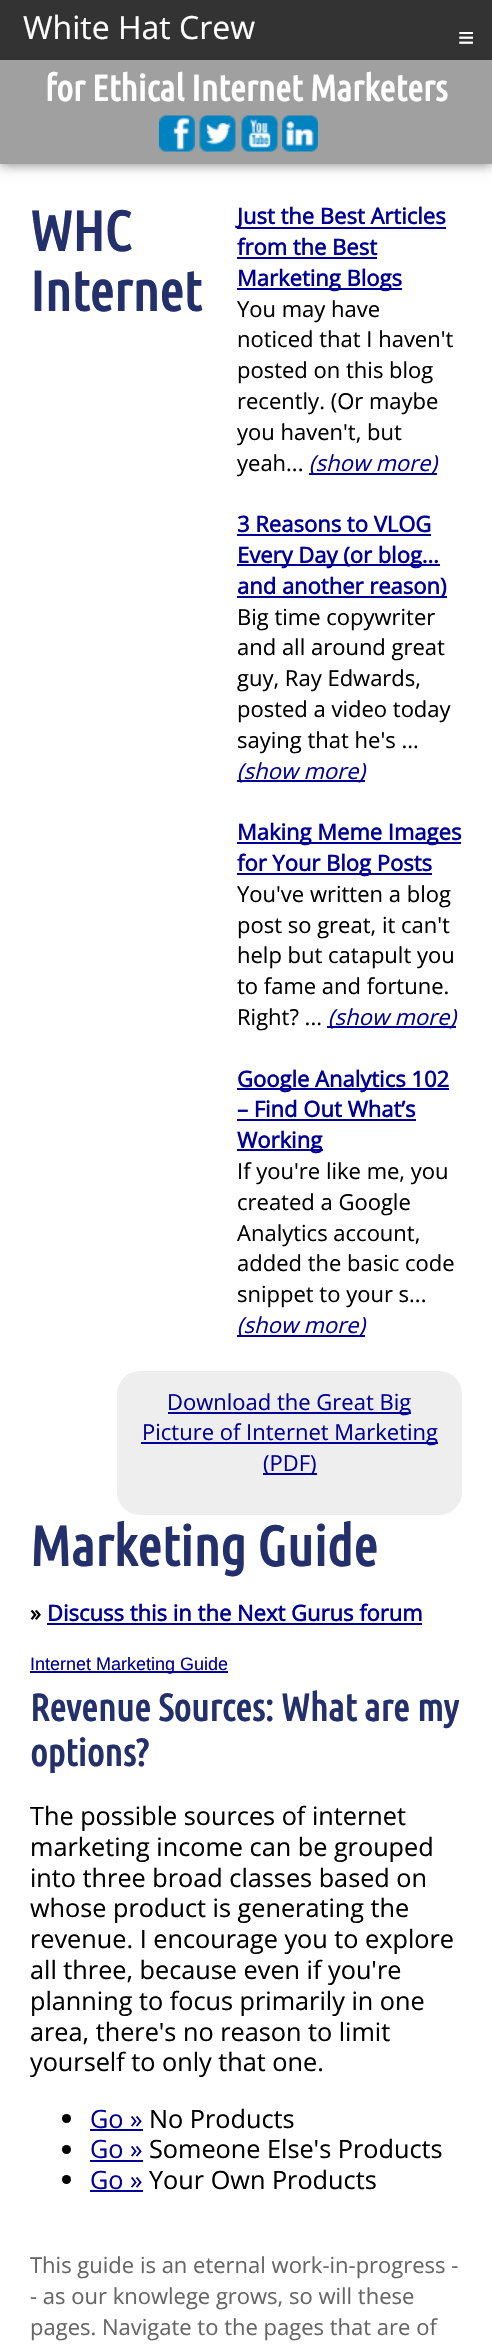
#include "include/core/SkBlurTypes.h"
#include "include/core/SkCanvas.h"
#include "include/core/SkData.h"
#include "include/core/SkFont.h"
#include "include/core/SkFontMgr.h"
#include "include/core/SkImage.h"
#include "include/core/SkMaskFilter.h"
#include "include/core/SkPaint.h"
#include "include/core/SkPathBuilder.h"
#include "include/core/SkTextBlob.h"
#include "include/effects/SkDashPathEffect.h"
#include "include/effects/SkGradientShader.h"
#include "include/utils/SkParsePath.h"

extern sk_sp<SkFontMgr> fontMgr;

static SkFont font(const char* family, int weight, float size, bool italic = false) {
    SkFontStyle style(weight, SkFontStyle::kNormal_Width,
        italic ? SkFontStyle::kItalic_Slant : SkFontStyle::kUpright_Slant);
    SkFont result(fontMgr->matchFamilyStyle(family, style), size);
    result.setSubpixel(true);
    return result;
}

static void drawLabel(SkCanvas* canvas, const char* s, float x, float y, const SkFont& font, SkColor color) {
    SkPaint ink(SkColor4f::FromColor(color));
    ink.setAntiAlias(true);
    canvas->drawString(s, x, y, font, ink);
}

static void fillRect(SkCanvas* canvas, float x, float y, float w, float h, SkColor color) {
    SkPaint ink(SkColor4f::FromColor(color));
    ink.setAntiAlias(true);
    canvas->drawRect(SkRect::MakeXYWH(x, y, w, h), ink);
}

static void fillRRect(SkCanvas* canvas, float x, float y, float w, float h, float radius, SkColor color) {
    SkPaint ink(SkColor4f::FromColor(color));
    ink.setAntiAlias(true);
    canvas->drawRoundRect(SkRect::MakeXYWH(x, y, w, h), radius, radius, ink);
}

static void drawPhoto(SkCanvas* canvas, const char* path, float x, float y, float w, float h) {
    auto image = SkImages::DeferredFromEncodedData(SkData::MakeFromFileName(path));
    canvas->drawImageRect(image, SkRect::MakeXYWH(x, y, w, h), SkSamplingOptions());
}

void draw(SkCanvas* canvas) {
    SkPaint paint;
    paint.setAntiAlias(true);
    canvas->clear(0xFFFFFFFF);
    paint.setColor(0xFF777777);
    paint.setMaskFilter(SkMaskFilter::MakeBlur(kNormal_SkBlurStyle, 6));
    canvas->drawRect(SkRect::MakeXYWH(0, 60, 492, 104), paint);
    paint.setMaskFilter(nullptr);
    fillRect(canvas, 0, 0, 492, 60, 0xFF333333);
    SkFont font1 = font("Open Sans", 400, 32);
    drawLabel(canvas, "White Hat Crew", 23, 39, font1, 0xFFFFFFFF);
    SkFont font2 = font("Liberation Sans", 400, 28);
    drawLabel(canvas, "≡", 458, 47, font2, 0xFFFFFFFF);
    fillRect(canvas, 0, 60, 492, 104, 0xFFA0A0A0);
    SkFont font3 = font("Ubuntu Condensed", 700, 36.4f);
    drawLabel(canvas, "for Ethical Internet Marketers", 45, 101, font3, 0xFFFFFFFF);
    drawPhoto(canvas, "assets/img1.png", 159, 115, 36, 37);
    drawPhoto(canvas, "assets/img2.png", 199, 115, 37, 37);
    drawPhoto(canvas, "assets/img3.png", 241, 115, 37, 37);
    drawPhoto(canvas, "assets/img4.png", 282, 115, 36, 37);
    fillRect(canvas, 237, 227, 209, 2, 0xFF000099);
    SkFont font4 = font("Open Sans", 700, 22);
    drawLabel(canvas, "Just the Best Articles", 237, 224, font4, 0xFF000099);
    drawLabel(canvas, "from the Best", 237, 255, font4, 0xFF000099);
    fillRect(canvas, 237, 257, 140, 2, 0xFF000099);
    fillRect(canvas, 237, 288, 165, 2, 0xFF000099);
    drawLabel(canvas, "Marketing Blogs", 237, 286, font4, 0xFF000099);
    SkFont font5 = font("Open Sans", 400, 22);
    drawLabel(canvas, "You may have", 237, 317, font5, 0xFF000000);
    drawLabel(canvas, "noticed that I haven't", 237, 347, font5, 0xFF000000);
    drawLabel(canvas, "posted on this blog", 237, 378, font5, 0xFF000000);
    drawLabel(canvas, "recently. (Or maybe", 237, 409, font5, 0xFF000000);
    drawLabel(canvas, "you haven't, but", 237, 440, font5, 0xFF000000);
    drawLabel(canvas, "yeah...", 237, 471, font5, 0xFF000000);
    fillRect(canvas, 309, 473, 128, 2, 0xFF000099);
    SkFont font6 = font("Open Sans", 400, 22, true);
    drawLabel(canvas, "(show more)", 309, 471, font6, 0xFF000099);
    drawLabel(canvas, "3 Reasons to VLOG", 237, 532, font4, 0xFF000099);
    fillRect(canvas, 237, 534, 194, 2, 0xFF000099);
    fillRect(canvas, 237, 564, 203, 2, 0xFF000099);
    drawLabel(canvas, "Every Day (or blog…", 237, 563, font4, 0xFF000099);
    fillRect(canvas, 237, 596, 210, 2, 0xFF000099);
    drawLabel(canvas, "and another reason)", 237, 594, font4, 0xFF000099);
    drawLabel(canvas, "Big time copywriter", 237, 625, font5, 0xFF000000);
    drawLabel(canvas, "and all around great", 237, 655, font5, 0xFF000000);
    drawLabel(canvas, "guy, Ray Edwards,", 237, 686, font5, 0xFF000000);
    drawLabel(canvas, "posted a video today", 237, 717, font5, 0xFF000000);
    drawLabel(canvas, "saying that he's ...", 237, 748, font5, 0xFF000000);
    fillRect(canvas, 237, 780, 128, 2, 0xFF000099);
    drawLabel(canvas, "(show more)", 237, 779, font6, 0xFF000099);
    fillRect(canvas, 237, 842, 224, 2, 0xFF000099);
    drawLabel(canvas, "Making Meme Images", 237, 840, font4, 0xFF000099);
    fillRect(canvas, 237, 873, 195, 2, 0xFF000099);
    drawLabel(canvas, "for Your Blog Posts", 237, 871, font4, 0xFF000099);
    drawLabel(canvas, "You've written a blog", 237, 902, font5, 0xFF000000);
    drawLabel(canvas, "post so great, it can't", 237, 933, font5, 0xFF000000);
    drawLabel(canvas, "help but catapult you", 237, 963, font5, 0xFF000000);
    drawLabel(canvas, "to fame and fortune.", 237, 994, font5, 0xFF000000);
    drawLabel(canvas, "Right? ...", 237, 1025, font5, 0xFF000000);
    fillRect(canvas, 327, 1026, 129, 2, 0xFF000099);
    drawLabel(canvas, "(show more)", 328, 1025, font6, 0xFF000099);
    fillRect(canvas, 237, 1088, 212, 2, 0xFF000099);
    drawLabel(canvas, "Google Analytics 102", 237, 1087, font4, 0xFF000099);
    drawLabel(canvas, "– Find Out What’s", 237, 1117, font4, 0xFF000099);
    fillRect(canvas, 237, 1119, 179, 2, 0xFF000099);
    fillRect(canvas, 237, 1149, 86, 2, 0xFF000099);
    drawLabel(canvas, "Working", 237, 1148, font4, 0xFF000099);
    drawLabel(canvas, "If you're like me, you", 237, 1179, font5, 0xFF000000);
    drawLabel(canvas, "created a Google", 237, 1210, font5, 0xFF000000);
    drawLabel(canvas, "Analytics account,", 237, 1241, font5, 0xFF000000);
    drawLabel(canvas, "added the basic code", 237, 1271, font5, 0xFF000000);
    drawLabel(canvas, "snippet to your s...", 237, 1302, font5, 0xFF000000);
    fillRect(canvas, 237, 1335, 128, 2, 0xFF000099);
    drawLabel(canvas, "(show more)", 237, 1333, font6, 0xFF000099);
    SkFont font7 = font("Ubuntu Condensed", 700, 56);
    drawLabel(canvas, "WHC", 30, 251, font7, 0xFF24306B);
    drawLabel(canvas, "Internet", 30, 311, font7, 0xFF24306B);
    drawLabel(canvas, "Marketing Guide", 30, 1566, font7, 0xFF24306B);
    fillRRect(canvas, 117, 1371, 345, 144, 23, 0xFFEEEEEE);
    fillRect(canvas, 168, 1412, 243, 2, 0xFF000099);
    drawLabel(canvas, "Download the Great Big", 167, 1410, font5, 0xFF000099);
    fillRect(canvas, 141, 1442, 297, 2, 0xFF000099);
    drawLabel(canvas, "Picture of Internet Marketing", 142, 1440, font5, 0xFF000099);
    fillRect(canvas, 263, 1473, 54, 2, 0xFF000099);
    drawLabel(canvas, "(PDF)", 263, 1471, font5, 0xFF000099);
    drawLabel(canvas, "»", 30, 1621, font4, 0xFF000000);
    drawLabel(canvas, "Discuss this in the Next Gurus forum", 47, 1621, font4, 0xFF000099);
    fillRect(canvas, 47, 1623, 375, 2, 0xFF000099);
    fillRect(canvas, 30, 1671, 198, 2, 0xFF000099);
    SkFont font8 = font("Liberation Sans", 400, 18);
    drawLabel(canvas, "Internet Marketing Guide", 30, 1670, font8, 0xFF000099);
    SkFont font9 = font("Ubuntu Condensed", 700, 38);
    drawLabel(canvas, "Revenue Sources: What are my", 30, 1721, font9, 0xFF24306B);
    drawLabel(canvas, "options?", 30, 1766, font9, 0xFF24306B);
    SkFont font10 = font("Open Sans", 400, 25.25f);
    drawLabel(canvas, "The possible sources of internet", 30, 1825, font10, 0xFF000000);
    drawLabel(canvas, "marketing income can be grouped", 30, 1856, font10, 0xFF000000);
    drawLabel(canvas, "into three broad classes based on", 30, 1887, font10, 0xFF000000);
    drawLabel(canvas, "whose product is generating the", 30, 1917, font10, 0xFF000000);
    drawLabel(canvas, "revenue. I encourage you to explore", 30, 1948, font10, 0xFF000000);
    drawLabel(canvas, "all three, because even if you're", 30, 1979, font10, 0xFF000000);
    drawLabel(canvas, "planning to focus primarily in one", 30, 2010, font10, 0xFF000000);
    drawLabel(canvas, "area, there's no reason to limit", 30, 2041, font10, 0xFF000000);
    drawLabel(canvas, "yourself to only that one.", 30, 2071, font10, 0xFF000000);
    paint.setColor(0xFF000000);
    canvas->drawCircle(66.5f, 2118.5f, 4.5f, paint);
    drawLabel(canvas, "Go »", 90, 2128, font10, 0xFF000099);
    fillRect(canvas, 90, 2129, 53, 2, 0xFF000099);
    drawLabel(canvas, "No Products", 149, 2128, font10, 0xFF000000);
    canvas->drawCircle(66.5f, 2149.5f, 4.5f, paint);
    drawLabel(canvas, "Go »", 90, 2158, font10, 0xFF000099);
    fillRect(canvas, 90, 2160, 53, 2, 0xFF000099);
    drawLabel(canvas, "Someone Else's Products", 149, 2158, font10, 0xFF000000);
    canvas->drawCircle(66.5f, 2179.5f, 4.5f, paint);
    drawLabel(canvas, "Go »", 90, 2189, font10, 0xFF000099);
    fillRect(canvas, 90, 2190, 53, 2, 0xFF000099);
    drawLabel(canvas, "Your Own Products", 149, 2189, font10, 0xFF000000);
    drawLabel(canvas, "This guide is an eternal work-in-progress -", 30, 2273, font5, 0xFF666666);
    drawLabel(canvas, "- as our knowlege grows, so will these", 30, 2304, font5, 0xFF666666);
    drawLabel(canvas, "pages. Navigate to the pages that are of", 30, 2335, font5, 0xFF666666);
}
